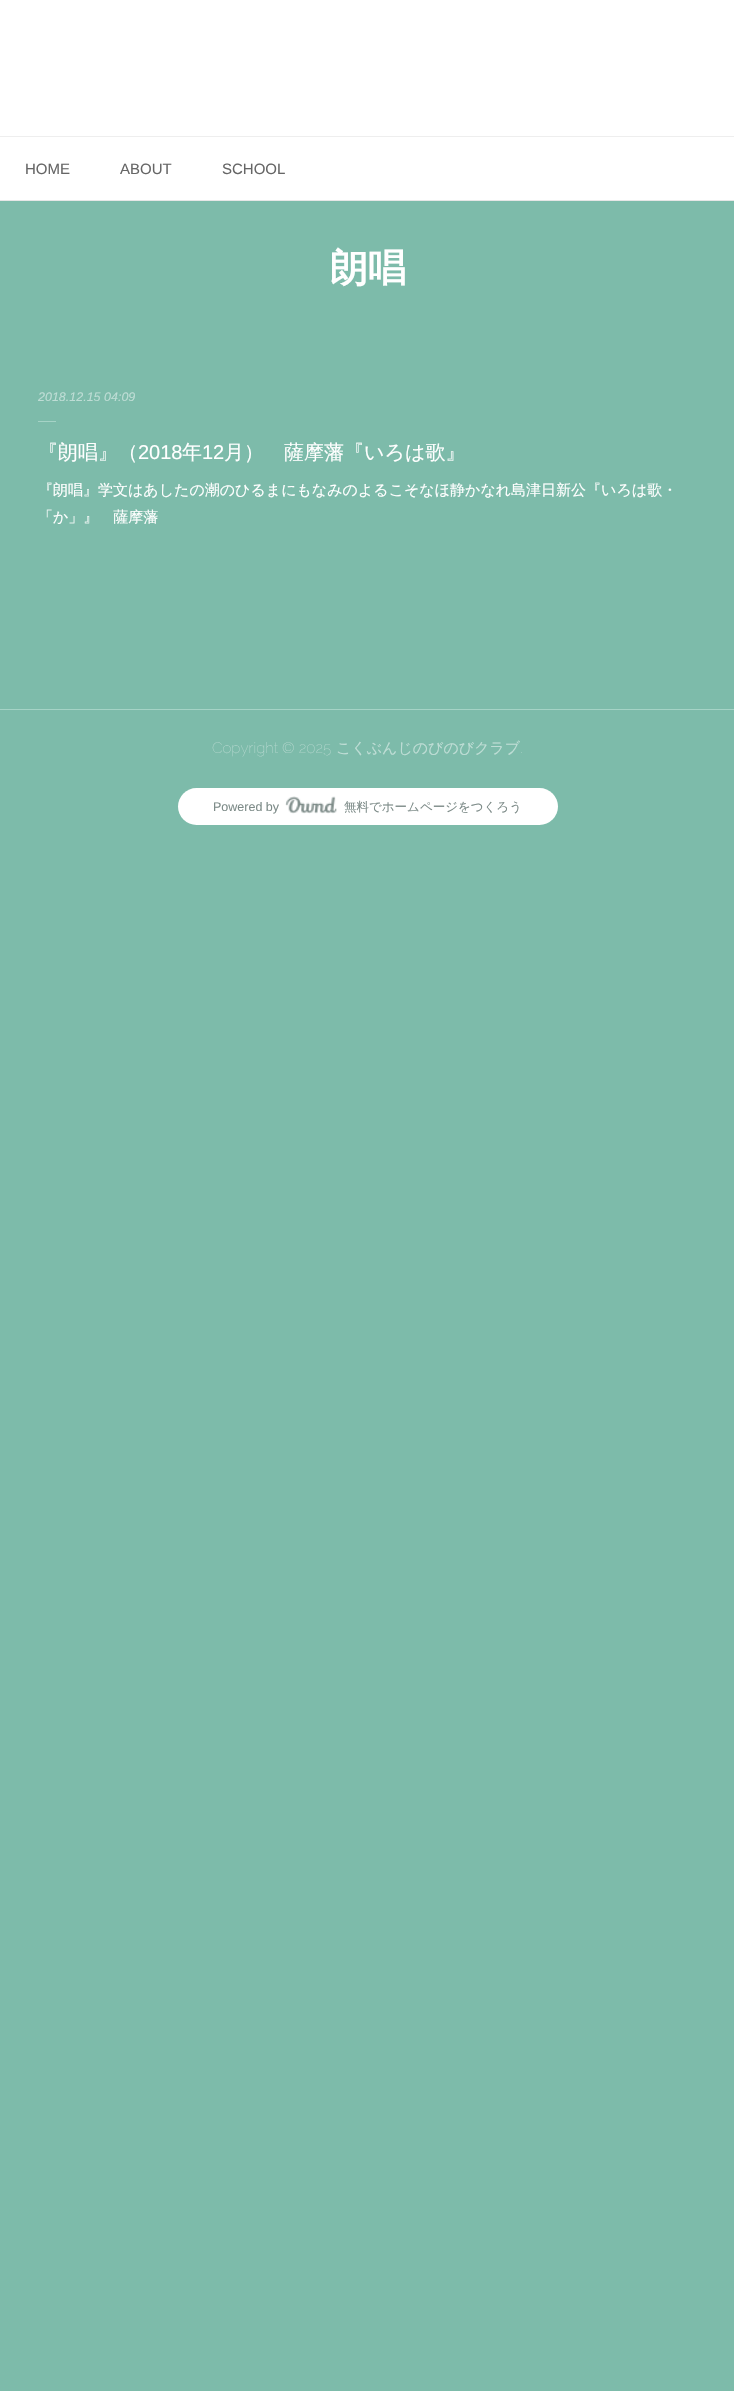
#include "include/core/SkBlurTypes.h"
#include "include/core/SkCanvas.h"
#include "include/core/SkData.h"
#include "include/core/SkFont.h"
#include "include/core/SkFontMgr.h"
#include "include/core/SkImage.h"
#include "include/core/SkMaskFilter.h"
#include "include/core/SkPaint.h"
#include "include/core/SkPathBuilder.h"
#include "include/core/SkTextBlob.h"
#include "include/effects/SkDashPathEffect.h"
#include "include/effects/SkGradientShader.h"
#include "include/utils/SkParsePath.h"

extern sk_sp<SkFontMgr> fontMgr;

static SkFont font(const char* family, int weight, float size, bool italic = false) {
    SkFontStyle style(weight, SkFontStyle::kNormal_Width,
        italic ? SkFontStyle::kItalic_Slant : SkFontStyle::kUpright_Slant);
    SkFont result(fontMgr->matchFamilyStyle(family, style), size);
    result.setSubpixel(true);
    return result;
}

static void drawLabel(SkCanvas* canvas, const char* s, float x, float y, const SkFont& font, SkColor color) {
    SkPaint ink(SkColor4f::FromColor(color));
    ink.setAntiAlias(true);
    canvas->drawString(s, x, y, font, ink);
}

static void fillRect(SkCanvas* canvas, float x, float y, float w, float h, SkColor color) {
    SkPaint ink(SkColor4f::FromColor(color));
    ink.setAntiAlias(true);
    canvas->drawRect(SkRect::MakeXYWH(x, y, w, h), ink);
}

static void fillRRect(SkCanvas* canvas, float x, float y, float w, float h, float radius, SkColor color) {
    SkPaint ink(SkColor4f::FromColor(color));
    ink.setAntiAlias(true);
    canvas->drawRoundRect(SkRect::MakeXYWH(x, y, w, h), radius, radius, ink);
}

static void drawPhoto(SkCanvas* canvas, const char* path, float x, float y, float w, float h) {
    auto image = SkImages::DeferredFromEncodedData(SkData::MakeFromFileName(path));
    canvas->drawImageRect(image, SkRect::MakeXYWH(x, y, w, h), SkSamplingOptions());
}

void draw(SkCanvas* canvas) {
    SkPaint paint;
    paint.setAntiAlias(true);
    canvas->clear(0xFF7DBBAA);
    fillRect(canvas, 0, 0, 734, 200, 0xFFFFFFFF);
    fillRect(canvas, 0, 136, 734, 1, 0xFFEEEEEE);
    fillRect(canvas, 0, 200, 734, 1, 0xFFE6E6E6);
    SkFont font1 = font("Liberation Sans", 400, 15);
    drawLabel(canvas, "HOME", 25, 174, font1, 0xFF666666);
    drawLabel(canvas, "ABOUT", 120, 174, font1, 0xFF666666);
    drawLabel(canvas, "SCHOOL", 222, 174, font1, 0xFF666666);
    SkFont font2 = font("WenQuanYi Zen Hei", 700, 38);
    drawLabel(canvas, "朗唱", 330, 281, font2, 0xFFFFFFFF);
    SkFont font3 = font("Liberation Sans", 400, 12.5f, true);
    drawLabel(canvas, "2018.12.15 04:09", 38, 401, font3, 0xFFBEDDD5);
    fillRect(canvas, 38, 421, 18, 1, 0xFFA5D3C6);
    SkFont font4 = font("WenQuanYi Zen Hei", 500, 20);
    drawLabel(canvas, "『朗唱』（", 38, 459, font4, 0xFFFFFFFF);
    SkFont font5 = font("Liberation Sans", 400, 20);
    drawLabel(canvas, "2018", 138, 459, font5, 0xFFFFFFFF);
    drawLabel(canvas, "年", 182, 459, font4, 0xFFFFFFFF);
    drawLabel(canvas, "12", 202, 459, font5, 0xFFFFFFFF);
    drawLabel(canvas, "月）　薩摩藩『いろは歌』", 224, 459, font4, 0xFFFFFFFF);
    SkFont font6 = font("WenQuanYi Zen Hei", 500, 15);
    drawLabel(canvas, "『朗唱』学文はあしたの潮のひるまにもなみのよるこそなほ静かなれ島津日新公『いろは歌・", 38, 495, font6, 0xFFFFFFFF);
    drawLabel(canvas, "「か」』　薩摩藩", 38, 522, font6, 0xFFFFFFFF);
    fillRect(canvas, 0, 709, 734, 1, 0xFFA5D3C6);
    SkFont font7 = font("Raleway", 100, 15);
    drawLabel(canvas, "Copyright © 2025", 212, 753, font7, 0xFFBEDDD5);
    drawLabel(canvas, "こくぶんじのびのびクラブ", 336, 753, font6, 0xFFBEDDD5);
    drawLabel(canvas, ".", 520, 753, font7, 0xFFBEDDD5);
    fillRRect(canvas, 178, 788, 380, 37, 18.5f, 0xFFFFFFFF);
    SkFont font8 = font("Liberation Sans", 400, 12.5f);
    drawLabel(canvas, "Powered by", 213, 811, font8, 0xFF7D8B88);
    drawPhoto(canvas, "assets/img1.png", 285, 796, 52, 18);
    SkFont font9 = font("WenQuanYi Zen Hei", 500, 12.5f);
    drawLabel(canvas, "無料でホームページをつくろう", 344, 811, font9, 0xFF7D8B88);
}
